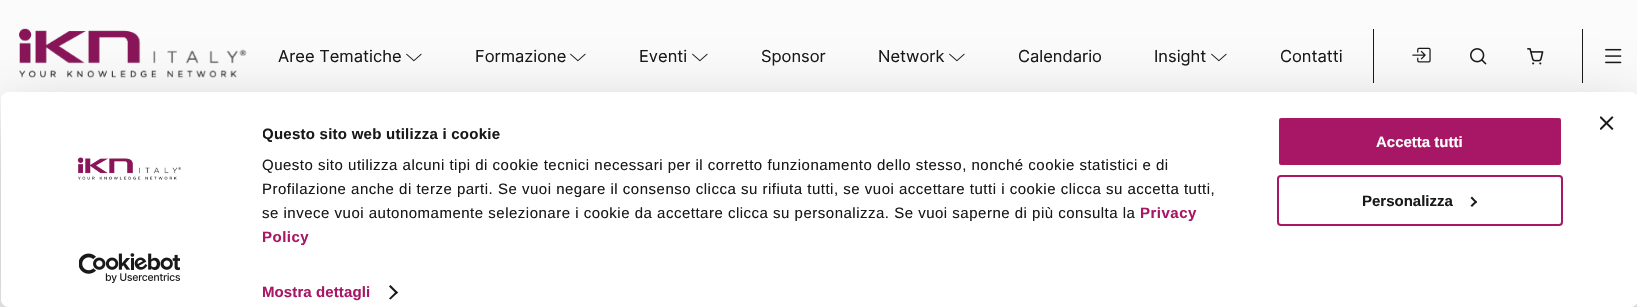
#include "include/core/SkBlurTypes.h"
#include "include/core/SkCanvas.h"
#include "include/core/SkData.h"
#include "include/core/SkFont.h"
#include "include/core/SkFontMgr.h"
#include "include/core/SkImage.h"
#include "include/core/SkMaskFilter.h"
#include "include/core/SkPaint.h"
#include "include/core/SkPathBuilder.h"
#include "include/core/SkTextBlob.h"
#include "include/effects/SkDashPathEffect.h"
#include "include/effects/SkGradientShader.h"
#include "include/utils/SkParsePath.h"

extern sk_sp<SkFontMgr> fontMgr;

static SkFont font(const char* family, int weight, float size, bool italic = false) {
    SkFontStyle style(weight, SkFontStyle::kNormal_Width,
        italic ? SkFontStyle::kItalic_Slant : SkFontStyle::kUpright_Slant);
    SkFont result(fontMgr->matchFamilyStyle(family, style), size);
    result.setSubpixel(true);
    return result;
}

static void drawLabel(SkCanvas* canvas, const char* s, float x, float y, const SkFont& font, SkColor color) {
    SkPaint ink(SkColor4f::FromColor(color));
    ink.setAntiAlias(true);
    canvas->drawString(s, x, y, font, ink);
}

static void drawTracked(SkCanvas* canvas, const char* s, float x, float y, const SkFont& font, const SkPaint& ink, float letter, float word) {
    std::vector<SkGlyphID> glyphs(font.countText(s, strlen(s), SkTextEncoding::kUTF8));
    std::vector<float> xs(glyphs.size());
    font.textToGlyphs(s, strlen(s), SkTextEncoding::kUTF8, glyphs);
    font.getXPos(glyphs, xs, x);
    float extra = 0;
    for (size_t i = 0; i < glyphs.size(); i++) {
        xs[i] += extra;
        extra += letter + word * (glyphs[i] == font.unicharToGlyph(' '));
    }
    canvas->drawTextBlob(SkTextBlob::MakeFromPosHGlyphs(glyphs, xs, y, font), 0, 0, ink);
}

static void fillRect(SkCanvas* canvas, float x, float y, float w, float h, SkColor color) {
    SkPaint ink(SkColor4f::FromColor(color));
    ink.setAntiAlias(true);
    canvas->drawRect(SkRect::MakeXYWH(x, y, w, h), ink);
}

static void fillRRect(SkCanvas* canvas, float x, float y, float w, float h, float radius, SkColor color) {
    SkPaint ink(SkColor4f::FromColor(color));
    ink.setAntiAlias(true);
    canvas->drawRoundRect(SkRect::MakeXYWH(x, y, w, h), radius, radius, ink);
}

static void drawPhoto(SkCanvas* canvas, const char* path, float x, float y, float w, float h) {
    auto image = SkImages::DeferredFromEncodedData(SkData::MakeFromFileName(path));
    canvas->drawImageRect(image, SkRect::MakeXYWH(x, y, w, h), SkSamplingOptions());
}

static SkPath parsePath(const char* data, bool evenOdd = false) {
    SkPath result = *SkParsePath::FromSVGString(data);
    if (evenOdd) result.setFillType(SkPathFillType::kEvenOdd);
    return result;
}

void draw(SkCanvas* canvas) {
    SkPaint paint;
    paint.setAntiAlias(true);
    canvas->clear(0xFFFBFBFB);
    drawPhoto(canvas, "assets/img1.png", 19, 28, 228, 50);
    SkFont font1 = font("Inter", 400, 16.5f);
    drawLabel(canvas, "Aree Tematiche", 278, 62, font1, 0xFF191919);
    drawPhoto(canvas, "assets/img2.png", 406, 53, 16, 9);
    drawLabel(canvas, "Formazione", 475, 62, font1, 0xFF191919);
    drawPhoto(canvas, "assets/img2.png", 570, 53, 16, 9);
    drawLabel(canvas, "Eventi", 639, 62, font1, 0xFF191919);
    drawPhoto(canvas, "assets/img2.png", 692, 53, 16, 9);
    drawLabel(canvas, "Sponsor", 761, 62, font1, 0xFF191919);
    drawLabel(canvas, "Network", 878, 62, font1, 0xFF191919);
    drawPhoto(canvas, "assets/img2.png", 949, 53, 16, 9);
    drawLabel(canvas, "Calendario", 1018, 62, font1, 0xFF191919);
    drawLabel(canvas, "Insight", 1154, 62, font1, 0xFF191919);
    drawPhoto(canvas, "assets/img2.png", 1211, 53, 16, 9);
    drawLabel(canvas, "Contatti", 1280, 62, font1, 0xFF191919);
    fillRect(canvas, 1582, 29, 1, 54, 0xFF191919);
    fillRect(canvas, 1373, 29, 1, 54, 0xFF191919);
    drawPhoto(canvas, "assets/img3.png", 1412, 47, 19, 16);
    drawPhoto(canvas, "assets/img4.png", 1470, 48, 17, 17);
    drawPhoto(canvas, "assets/img5.png", 1527, 48, 17, 17);
    drawPhoto(canvas, "assets/img6.png", 1605, 48, 17, 16);
    canvas->save();
    canvas->clipPath(parsePath("M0 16H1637V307H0ZM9 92H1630C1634.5 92 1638 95.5 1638 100V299C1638 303.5 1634.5 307 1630 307H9C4.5 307 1 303.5 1 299V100C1 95.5 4.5 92 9 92Z", true), true);
    paint.setColor(0x4D000000);
    paint.setMaskFilter(SkMaskFilter::MakeBlur(kNormal_SkBlurStyle, 35));
    canvas->drawRoundRect(SkRect::MakeXYWH(1, 122, 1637, 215), 8, 8, paint);
    paint.setMaskFilter(nullptr);
    canvas->restore();
    fillRRect(canvas, 1, 92, 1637, 215, 8, 0xFFFFFFFF);
    drawPhoto(canvas, "assets/img7.png", 1600, 116, 14, 14);
    drawPhoto(canvas, "assets/img8.png", 77, 157, 105, 23);
    drawPhoto(canvas, "assets/img9.png", 79, 253, 101, 30);
    canvas->save();
    canvas->clipRect(SkRect::MakeXYWH(263, 122, 985, 127));
    SkFont font2 = font("Liberation Sans", 700, 15);
    paint.setColor(0xFF191919);
    drawTracked(canvas, "Questo sito web utilizza i cookie", 262, 139, font2, paint, 0.25f, 0);
    canvas->restore();
    SkFont font3 = font("Liberation Sans", 400, 15);
    drawTracked(canvas, "Questo sito utilizza alcuni tipi di cookie tecnici necessari per il corretto funzionamento dello stesso, nonché cookie statistici e di", 262, 170, font3, paint, 0.5f, 0);
    drawTracked(canvas, "Profilazione anche di terze parti. Se vuoi negare il consenso clicca su rifiuta tutti, se vuoi accettare tutti i cookie clicca su accetta tutti,", 262, 194, font3, paint, 0.5f, 0);
    drawTracked(canvas, "se invece vuoi autonomamente selezionare i cookie da accettare clicca su personalizza. Se vuoi saperne di più consulta la", 262, 218, font3, paint, 0.5f, 0);
    paint.setColor(0xFFA81765);
    drawTracked(canvas, "Privacy", 1140, 218, font2, paint, 0.5f, 0);
    drawTracked(canvas, "Policy", 262, 242, font2, paint, 0.5f, 0);
    drawTracked(canvas, "Mostra dettagli", 262, 297, font2, paint, 0.1f, 0);
    paint.setColor(0xFF191919);
    canvas->drawPath(parsePath("M390.5 285L398 292.5L396.5 294L389 286.5Z"), paint);
    canvas->drawPath(parsePath("M396.5 291L398 292.5L390.5 299.5L389 298.5Z"), paint);
    paint.setColor(0xFFA81765);
    canvas->drawRoundRect(SkRect::MakeXYWH(1278, 117, 284, 49), 3, 3, paint);
    paint.setStroke(true);
    paint.setStrokeWidth(2);
    paint.setColor(0xFFFFFFFF);
    canvas->drawRoundRect(SkRect::MakeXYWH(1278, 117, 284, 49), 3, 3, paint);
    drawLabel(canvas, "Accetta tutti", 1376, 147, font2, 0xFFFFFFFF);
    paint.setColor(0xFFA81765);
    canvas->drawRoundRect(SkRect::MakeXYWH(1278, 176, 284, 49), 3, 3, paint);
    drawLabel(canvas, "Personalizza", 1362, 206, font2, 0xFF191919);
    paint.setStroke(false);
    paint.setColor(0xFF191919);
    canvas->drawPath(parsePath("M1472 196.5L1477 202L1476 203.5L1470.5 198Z"), paint);
    canvas->drawPath(parsePath("M1476 200.5L1477 202L1472 207L1470.5 205.5Z"), paint);
}
